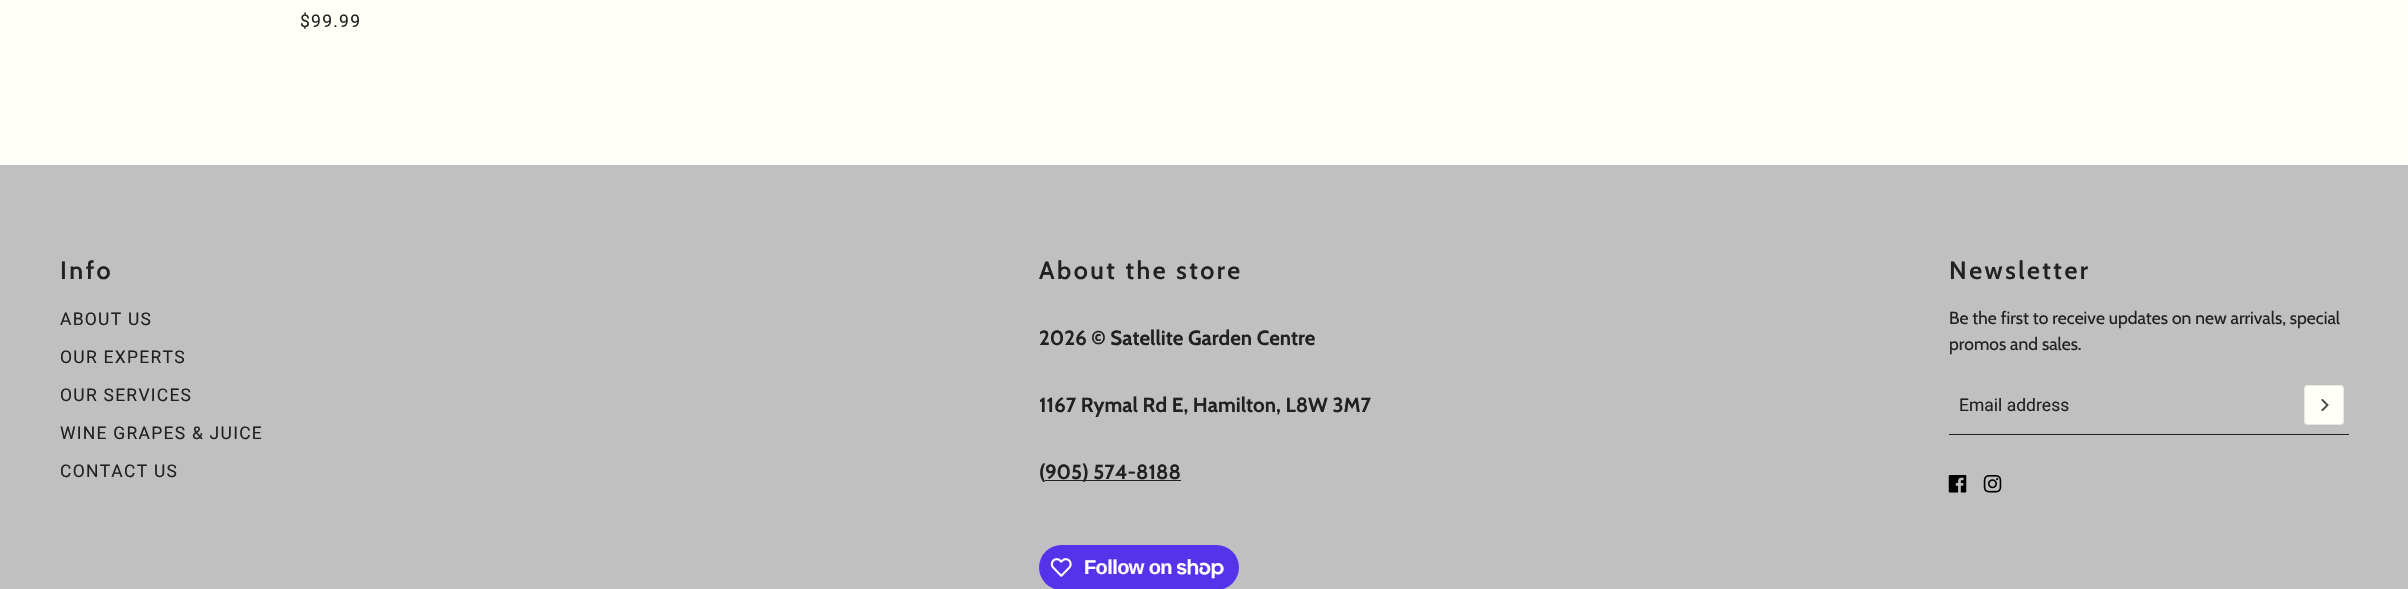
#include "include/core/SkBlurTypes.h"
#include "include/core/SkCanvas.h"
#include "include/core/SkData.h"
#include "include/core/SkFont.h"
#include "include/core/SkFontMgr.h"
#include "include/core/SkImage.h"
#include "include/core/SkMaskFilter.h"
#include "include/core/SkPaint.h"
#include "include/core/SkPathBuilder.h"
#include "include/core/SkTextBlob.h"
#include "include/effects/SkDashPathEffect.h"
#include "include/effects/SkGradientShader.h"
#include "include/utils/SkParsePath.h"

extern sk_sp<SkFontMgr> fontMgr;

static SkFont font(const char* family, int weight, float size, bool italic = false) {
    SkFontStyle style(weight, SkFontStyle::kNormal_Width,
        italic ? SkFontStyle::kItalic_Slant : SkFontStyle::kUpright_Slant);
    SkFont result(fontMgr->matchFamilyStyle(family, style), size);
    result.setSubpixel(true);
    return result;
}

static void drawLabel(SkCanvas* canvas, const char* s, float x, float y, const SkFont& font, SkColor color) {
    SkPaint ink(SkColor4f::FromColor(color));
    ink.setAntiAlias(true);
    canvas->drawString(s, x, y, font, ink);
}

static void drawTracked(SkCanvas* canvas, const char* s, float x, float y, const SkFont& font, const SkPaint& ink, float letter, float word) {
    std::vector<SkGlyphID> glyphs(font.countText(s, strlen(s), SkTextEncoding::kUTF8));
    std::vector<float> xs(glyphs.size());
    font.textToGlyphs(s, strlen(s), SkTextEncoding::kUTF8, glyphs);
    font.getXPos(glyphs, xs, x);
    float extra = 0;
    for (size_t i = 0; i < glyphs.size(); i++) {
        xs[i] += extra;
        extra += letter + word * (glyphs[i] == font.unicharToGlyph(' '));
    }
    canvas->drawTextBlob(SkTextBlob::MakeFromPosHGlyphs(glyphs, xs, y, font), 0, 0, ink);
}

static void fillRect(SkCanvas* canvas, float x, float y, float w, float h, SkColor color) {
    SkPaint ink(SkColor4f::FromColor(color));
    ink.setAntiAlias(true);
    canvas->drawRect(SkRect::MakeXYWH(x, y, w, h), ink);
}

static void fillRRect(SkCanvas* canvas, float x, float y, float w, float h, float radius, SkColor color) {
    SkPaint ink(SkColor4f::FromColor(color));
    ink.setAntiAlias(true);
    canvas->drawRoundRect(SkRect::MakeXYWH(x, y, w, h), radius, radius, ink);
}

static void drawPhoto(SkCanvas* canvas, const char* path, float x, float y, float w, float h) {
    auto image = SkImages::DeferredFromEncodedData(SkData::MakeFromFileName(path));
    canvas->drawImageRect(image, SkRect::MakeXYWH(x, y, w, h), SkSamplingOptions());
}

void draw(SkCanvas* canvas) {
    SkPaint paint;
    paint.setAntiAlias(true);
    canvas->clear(0xFFFFFFF7);
    SkFont font1 = font("Roboto", 400, 17.5f);
    paint.setColor(0xFF212121);
    drawTracked(canvas, "$99.99", 300, 27, font1, paint, 1.25f, 0);
    fillRect(canvas, 0, 165, 2408, 424, 0xFFC0C0C0);
    SkFont font2 = font("Cabin", 600, 25);
    drawTracked(canvas, "Info", 60, 279, font2, paint, 2.5f, 0);
    drawTracked(canvas, "ABOUT US", 60, 325, font1, paint, 1.25f, 0);
    drawTracked(canvas, "OUR EXPERTS", 60, 363, font1, paint, 1.25f, 0);
    drawTracked(canvas, "OUR SERVICES", 60, 401, font1, paint, 1.25f, 0);
    drawTracked(canvas, "WINE GRAPES & JUICE", 60, 439, font1, paint, 1.25f, 0);
    drawTracked(canvas, "CONTACT US", 60, 477, font1, paint, 1.25f, 0);
    drawTracked(canvas, "About the store", 1039, 279, font2, paint, 2.5f, 0);
    SkFont font3 = font("Cabin", 700, 20.5f);
    drawLabel(canvas, "2026 © Satellite Garden Centre", 1039, 345, font3, 0xFF212121);
    drawLabel(canvas, "1167 Rymal Rd E, Hamilton, L8W 3M7", 1039, 412, font3, 0xFF212121);
    drawLabel(canvas, "(", 1039, 479, font3, 0xFF212121);
    fillRect(canvas, 1045, 480, 136, 1, 0xFF212121);
    drawLabel(canvas, "905) 574-8188", 1045, 479, font3, 0xFF212121);
    fillRRect(canvas, 1039, 545, 200, 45, 22.5f, 0xFF5433EB);
    drawPhoto(canvas, "assets/img1.png", 1050, 558, 22, 19);
    SkFont font4 = font("Liberation Sans", 700, 20);
    paint.setColor(0xFFFFFFFF);
    drawTracked(canvas, "Follow on", 1084, 574, font4, paint, -0.6f, 0);
    drawPhoto(canvas, "assets/img2.png", 1176, 559, 48, 20);
    paint.setColor(0xFF212121);
    drawTracked(canvas, "Newsletter", 1949, 279, font2, paint, 2.5f, 0);
    SkFont font5 = font("Cabin", 400, 17.5f);
    drawLabel(canvas, "Be the first to receive updates on new arrivals, special", 1949, 324, font5, 0xFF212121);
    drawLabel(canvas, "promos and sales.", 1949, 350, font5, 0xFF212121);
    fillRect(canvas, 1949, 434, 400, 1, 0xFF212121);
    drawLabel(canvas, "Email address", 1959, 411, font1, 0xFF212121);
    fillRRect(canvas, 2304, 385, 40, 40, 4, 0xFFFFFFF7);
    paint.setStroke(true);
    paint.setStrokeWidth(1);
    paint.setColor(0x1A212121);
    canvas->drawRoundRect(SkRect::MakeXYWH(2304.5f, 385.5f, 39, 39), 3.5f, 3.5f, paint);
    drawPhoto(canvas, "assets/img3.png", 2321, 399, 8, 12);
    drawPhoto(canvas, "assets/img4.png", 1948, 475, 19, 18);
    drawPhoto(canvas, "assets/img5.png", 1983, 475, 19, 18);
}
